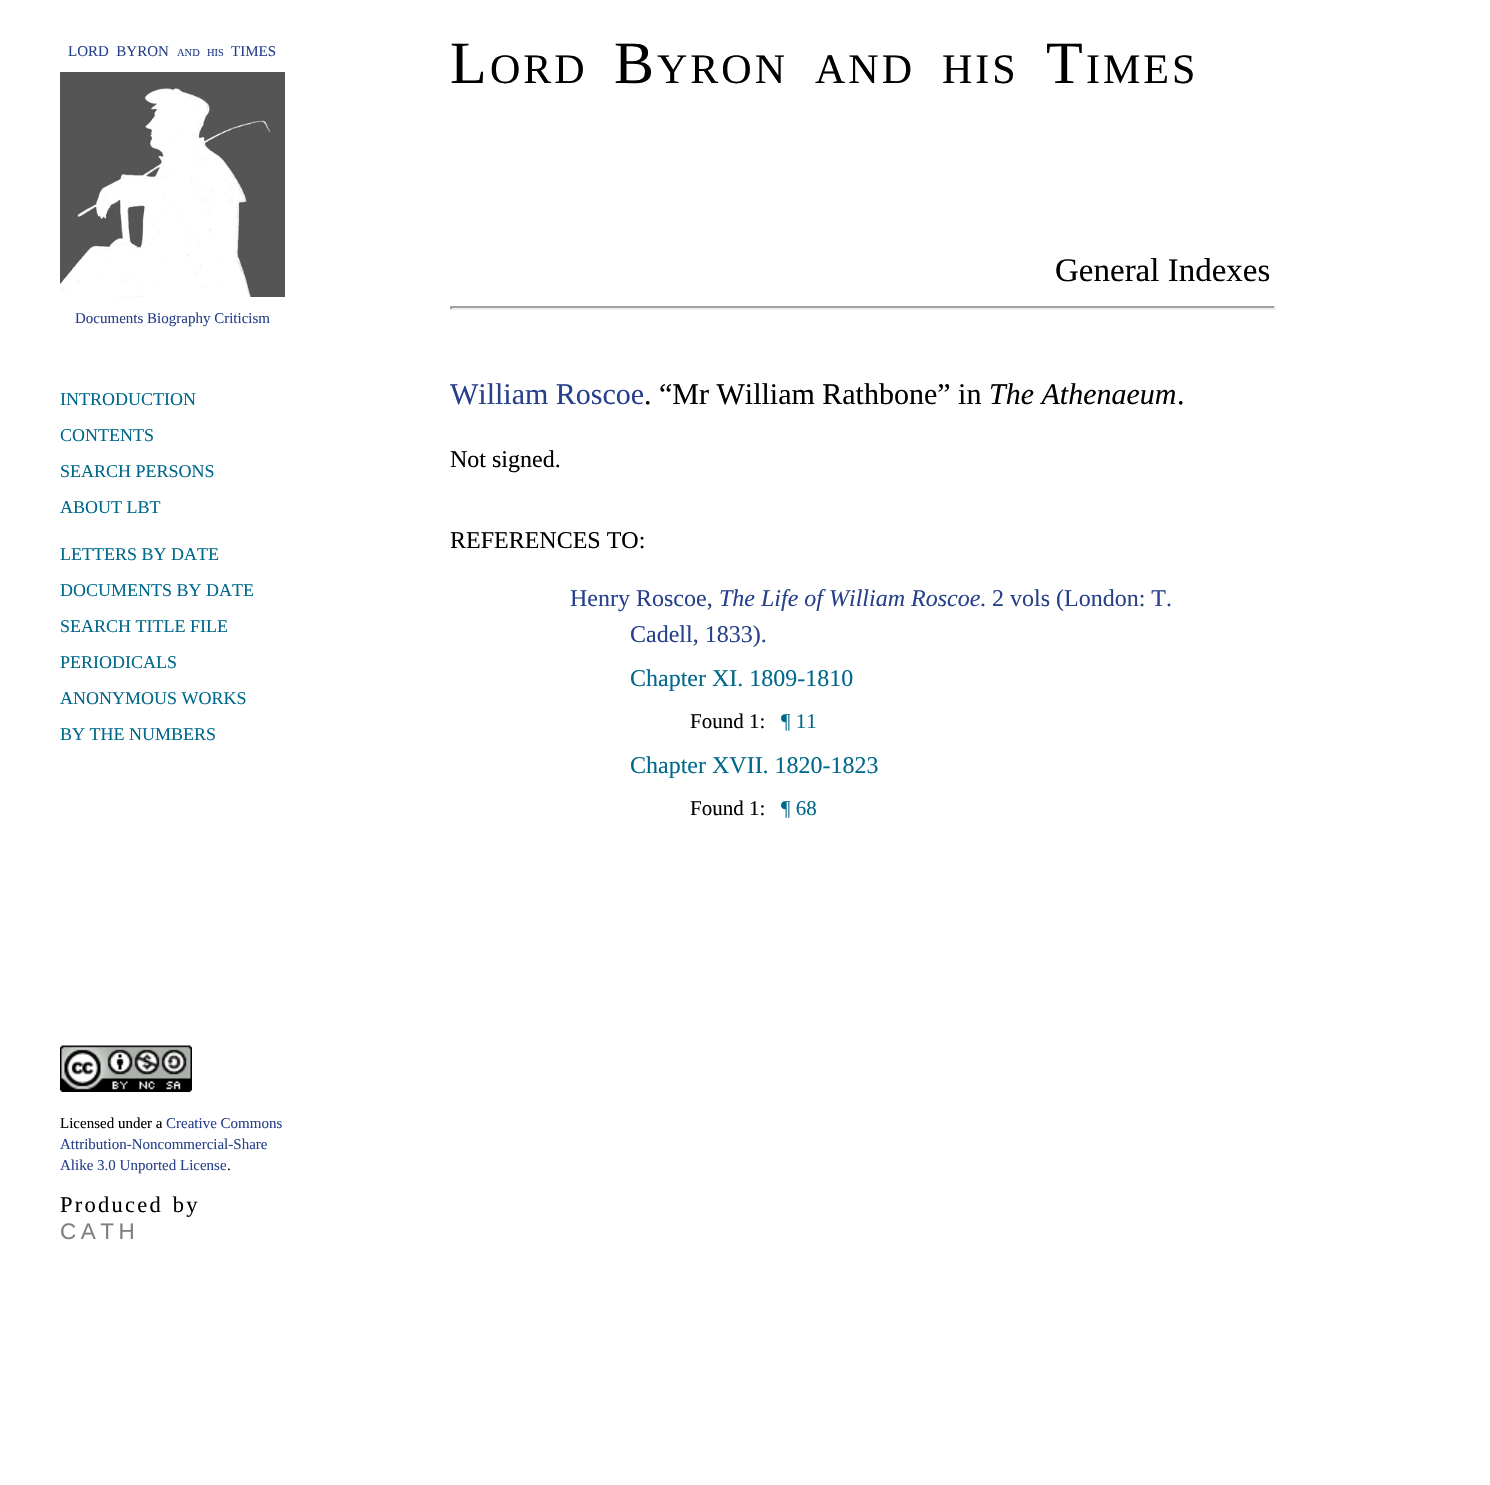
#include "include/core/SkBlurTypes.h"
#include "include/core/SkCanvas.h"
#include "include/core/SkData.h"
#include "include/core/SkFont.h"
#include "include/core/SkFontMgr.h"
#include "include/core/SkImage.h"
#include "include/core/SkMaskFilter.h"
#include "include/core/SkPaint.h"
#include "include/core/SkPathBuilder.h"
#include "include/core/SkTextBlob.h"
#include "include/effects/SkDashPathEffect.h"
#include "include/effects/SkGradientShader.h"
#include "include/utils/SkParsePath.h"

extern sk_sp<SkFontMgr> fontMgr;

static SkFont font(const char* family, int weight, float size, bool italic = false) {
    SkFontStyle style(weight, SkFontStyle::kNormal_Width,
        italic ? SkFontStyle::kItalic_Slant : SkFontStyle::kUpright_Slant);
    SkFont result(fontMgr->matchFamilyStyle(family, style), size);
    result.setSubpixel(true);
    return result;
}

static void drawLabel(SkCanvas* canvas, const char* s, float x, float y, const SkFont& font, SkColor color) {
    SkPaint ink(SkColor4f::FromColor(color));
    ink.setAntiAlias(true);
    canvas->drawString(s, x, y, font, ink);
}

static void drawTracked(SkCanvas* canvas, const char* s, float x, float y, const SkFont& font, const SkPaint& ink, float letter, float word) {
    std::vector<SkGlyphID> glyphs(font.countText(s, strlen(s), SkTextEncoding::kUTF8));
    std::vector<float> xs(glyphs.size());
    font.textToGlyphs(s, strlen(s), SkTextEncoding::kUTF8, glyphs);
    font.getXPos(glyphs, xs, x);
    float extra = 0;
    for (size_t i = 0; i < glyphs.size(); i++) {
        xs[i] += extra;
        extra += letter + word * (glyphs[i] == font.unicharToGlyph(' '));
    }
    canvas->drawTextBlob(SkTextBlob::MakeFromPosHGlyphs(glyphs, xs, y, font), 0, 0, ink);
}

static void fillRect(SkCanvas* canvas, float x, float y, float w, float h, SkColor color) {
    SkPaint ink(SkColor4f::FromColor(color));
    ink.setAntiAlias(true);
    canvas->drawRect(SkRect::MakeXYWH(x, y, w, h), ink);
}

static void drawPhoto(SkCanvas* canvas, const char* path, float x, float y, float w, float h) {
    auto image = SkImages::DeferredFromEncodedData(SkData::MakeFromFileName(path));
    canvas->drawImageRect(image, SkRect::MakeXYWH(x, y, w, h), SkSamplingOptions());
}

void draw(SkCanvas* canvas) {
    SkPaint paint;
    paint.setAntiAlias(true);
    canvas->clear(0xFFFFFFFF);
    SkFont font1 = font("Liberation Serif", 400, 15);
    drawLabel(canvas, "LORD  BYRON", 68, 56, font1, 0xFF27408B);
    SkFont font2 = font("Liberation Serif", 400, 10.5f);
    drawLabel(canvas, "AND", 177, 56, font2, 0xFF27408B);
    drawLabel(canvas, "HIS", 207, 56, font2, 0xFF27408B);
    drawLabel(canvas, "TIMES", 231, 56, font1, 0xFF27408B);
    drawPhoto(canvas, "assets/img1.png", 60, 72, 225, 225);
    drawLabel(canvas, "Documents Biography Criticism", 75, 323, font1, 0xFF27408B);
    SkFont font3 = font("Liberation Serif", 400, 60);
    paint.setColor(0xFF000000);
    drawTracked(canvas, "L", 450, 83, font3, paint, 3, 0);
    SkFont font4 = font("Liberation Serif", 400, 42);
    drawTracked(canvas, "ORD", 490, 83, font4, paint, 3, 0);
    drawTracked(canvas, "B", 614, 83, font3, paint, 3, 0);
    drawTracked(canvas, "YRON", 657, 83, font4, paint, 3, 0);
    drawTracked(canvas, "AND", 815, 83, font4, paint, 3, 0);
    drawTracked(canvas, "HIS", 942, 83, font4, paint, 3, 0);
    drawTracked(canvas, "T", 1046, 83, font3, paint, 3, 0);
    drawTracked(canvas, "IMES", 1086, 83, font4, paint, 3, 0);
    SkFont font5 = font("Liberation Serif", 400, 33);
    drawLabel(canvas, "General Indexes", 1055, 281, font5, 0xFF000000);
    fillRect(canvas, 450, 306, 825, 2, 0xFF9F9F9F);
    fillRect(canvas, 1274, 306, 2, 3, 0xFFEEEEEE);
    fillRect(canvas, 450, 308, 825, 2, 0xFFEEEEEE);
    fillRect(canvas, 450, 306, 2, 3, 0xFF9F9F9F);
    SkFont font6 = font("Liberation Serif", 400, 18);
    drawLabel(canvas, "INTRODUCTION", 60, 405, font6, 0xFF00688B);
    drawLabel(canvas, "CONTENTS", 60, 441, font6, 0xFF00688B);
    drawLabel(canvas, "SEARCH PERSONS", 60, 477, font6, 0xFF00688B);
    drawLabel(canvas, "ABOUT LBT", 60, 513, font6, 0xFF00688B);
    drawLabel(canvas, "LETTERS BY DATE", 60, 560, font6, 0xFF00688B);
    drawLabel(canvas, "DOCUMENTS BY DATE", 60, 596, font6, 0xFF00688B);
    drawLabel(canvas, "SEARCH TITLE FILE", 60, 632, font6, 0xFF00688B);
    drawLabel(canvas, "PERIODICALS", 60, 668, font6, 0xFF00688B);
    drawLabel(canvas, "ANONYMOUS WORKS", 60, 704, font6, 0xFF00688B);
    drawLabel(canvas, "BY THE NUMBERS", 60, 740, font6, 0xFF00688B);
    drawPhoto(canvas, "assets/img2.png", 60, 1045, 132, 47);
    drawLabel(canvas, "Licensed under a", 60, 1128, font1, 0xFF000000);
    drawLabel(canvas, "Creative Commons", 166, 1128, font1, 0xFF27408B);
    drawLabel(canvas, "Attribution-Noncommercial-Share", 60, 1149, font1, 0xFF27408B);
    drawLabel(canvas, "Alike 3.0 Unported License", 60, 1170, font1, 0xFF27408B);
    drawLabel(canvas, ".", 227, 1170, font1, 0xFF000000);
    SkFont font7 = font("Liberation Serif", 400, 22.5f);
    drawTracked(canvas, "Produced by", 60, 1212, font7, paint, 2.25f, 2);
    SkFont font8 = font("Liberation Sans", 400, 22.5f);
    paint.setColor(0xFF808080);
    drawTracked(canvas, "CATH", 60, 1239, font8, paint, 4.5f, 0);
    SkFont font9 = font("Liberation Serif", 400, 30);
    drawLabel(canvas, "William Roscoe", 450, 404, font9, 0xFF27408B);
    drawLabel(canvas, ". “Mr William Rathbone” in", 644, 404, font9, 0xFF000000);
    SkFont font10 = font("Liberation Serif", 400, 30, true);
    drawLabel(canvas, "The Athenaeum", 989, 404, font10, 0xFF000000);
    drawLabel(canvas, ".", 1177, 404, font9, 0xFF000000);
    SkFont font11 = font("Liberation Serif", 400, 24);
    drawLabel(canvas, "Not signed.", 450, 467, font11, 0xFF000000);
    drawLabel(canvas, "REFERENCES TO:", 450, 548, font11, 0xFF000000);
    drawLabel(canvas, "Henry Roscoe,", 570, 606, font11, 0xFF27408B);
    SkFont font12 = font("Liberation Serif", 400, 24, true);
    drawLabel(canvas, "The Life of William Roscoe", 719, 606, font12, 0xFF27408B);
    drawLabel(canvas, ". 2 vols (London: T.", 980, 606, font11, 0xFF27408B);
    drawLabel(canvas, "Cadell, 1833).", 630, 642, font11, 0xFF27408B);
    drawLabel(canvas, "Chapter XI. 1809-1810", 630, 686, font11, 0xFF00688B);
    SkFont font13 = font("Liberation Serif", 400, 21);
    drawLabel(canvas, "Found 1:", 690, 728, font13, 0xFF000000);
    drawLabel(canvas, "¶ 11", 781, 728, font13, 0xFF00688B);
    drawLabel(canvas, "Chapter XVII. 1820-1823", 630, 773, font11, 0xFF00688B);
    drawLabel(canvas, "Found 1:", 690, 815, font13, 0xFF000000);
    drawLabel(canvas, "¶ 68", 781, 815, font13, 0xFF00688B);
}
